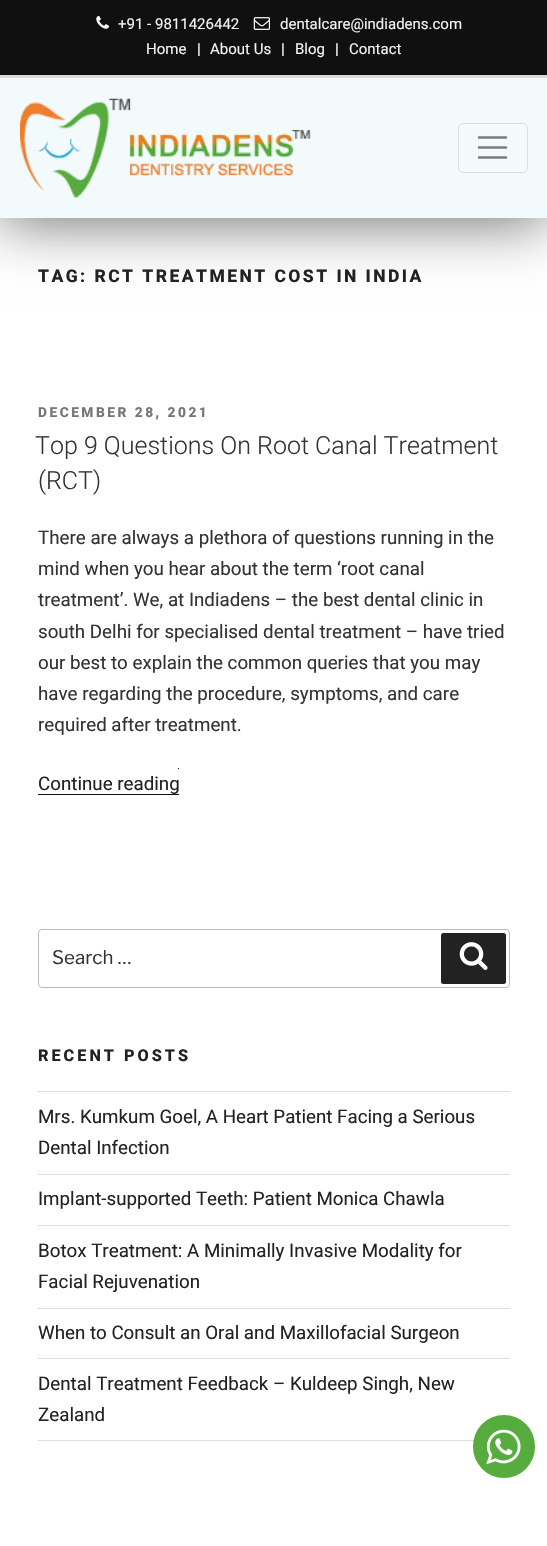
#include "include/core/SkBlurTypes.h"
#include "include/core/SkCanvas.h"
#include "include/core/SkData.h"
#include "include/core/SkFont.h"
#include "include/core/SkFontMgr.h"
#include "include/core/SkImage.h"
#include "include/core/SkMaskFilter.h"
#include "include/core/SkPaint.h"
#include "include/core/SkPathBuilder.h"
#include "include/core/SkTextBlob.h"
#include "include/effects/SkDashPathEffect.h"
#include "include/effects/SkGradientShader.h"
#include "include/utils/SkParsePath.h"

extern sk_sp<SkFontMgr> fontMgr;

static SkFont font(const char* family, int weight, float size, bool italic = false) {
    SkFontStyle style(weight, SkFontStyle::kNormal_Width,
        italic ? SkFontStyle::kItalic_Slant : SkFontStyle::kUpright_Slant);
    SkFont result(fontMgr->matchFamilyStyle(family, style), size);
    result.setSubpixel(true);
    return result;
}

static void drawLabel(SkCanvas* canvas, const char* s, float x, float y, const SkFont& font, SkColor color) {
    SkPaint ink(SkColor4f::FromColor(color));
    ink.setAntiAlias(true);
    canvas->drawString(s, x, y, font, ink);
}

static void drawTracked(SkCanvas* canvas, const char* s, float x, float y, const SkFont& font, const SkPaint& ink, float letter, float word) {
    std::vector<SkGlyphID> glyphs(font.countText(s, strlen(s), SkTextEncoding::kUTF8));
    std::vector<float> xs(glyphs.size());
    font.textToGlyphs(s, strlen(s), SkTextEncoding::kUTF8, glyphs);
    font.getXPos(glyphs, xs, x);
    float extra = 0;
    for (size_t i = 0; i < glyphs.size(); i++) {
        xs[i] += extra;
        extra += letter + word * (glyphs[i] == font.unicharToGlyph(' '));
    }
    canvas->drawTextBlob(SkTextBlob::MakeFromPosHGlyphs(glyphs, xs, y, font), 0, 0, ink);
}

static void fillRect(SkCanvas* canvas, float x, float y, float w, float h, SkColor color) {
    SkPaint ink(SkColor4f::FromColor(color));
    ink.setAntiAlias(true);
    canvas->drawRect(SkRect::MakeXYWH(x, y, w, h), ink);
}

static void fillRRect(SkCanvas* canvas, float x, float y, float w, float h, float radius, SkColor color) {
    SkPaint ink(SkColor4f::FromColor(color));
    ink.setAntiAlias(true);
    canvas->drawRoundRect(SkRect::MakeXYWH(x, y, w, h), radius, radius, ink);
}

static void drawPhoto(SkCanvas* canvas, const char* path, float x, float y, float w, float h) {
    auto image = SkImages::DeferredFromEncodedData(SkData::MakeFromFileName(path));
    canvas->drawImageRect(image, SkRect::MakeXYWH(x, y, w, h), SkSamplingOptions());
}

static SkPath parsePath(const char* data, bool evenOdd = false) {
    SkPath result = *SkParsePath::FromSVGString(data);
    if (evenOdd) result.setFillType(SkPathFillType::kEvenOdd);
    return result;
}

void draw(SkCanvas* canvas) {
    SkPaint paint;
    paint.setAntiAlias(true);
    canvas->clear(0xFFFFFFFF);
    paint.setColor(0x99000000);
    paint.setMaskFilter(SkMaskFilter::MakeBlur(kNormal_SkBlurStyle, 29));
    canvas->drawRect(SkRect::MakeXYWH(0, 3, 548, 217), paint);
    paint.setMaskFilter(nullptr);
    fillRect(canvas, 0, 78, 547, 140, 0xFFF3FAFB);
    fillRect(canvas, 0, 0, 547, 75, 0xFF101010);
    fillRect(canvas, 0, 75, 547, 3, 0xFFDAD9D9);
    drawPhoto(canvas, "assets/img1.png", 96, 16, 13, 13);
    SkFont font1 = font("Roboto", 400, 15);
    drawLabel(canvas, "+91 - 9811426442", 118, 29, font1, 0xFFF3F3F3);
    drawPhoto(canvas, "assets/img2.png", 253, 17, 17, 13);
    drawLabel(canvas, "dentalcare@indiadens.com", 280, 29, font1, 0xFFF3F3F3);
    drawLabel(canvas, "Home", 146, 54, font1, 0xFFF3F3F3);
    SkFont font2 = font("Roboto", 700, 15);
    drawLabel(canvas, "|", 197, 54, font2, 0xFFF3F3F3);
    drawLabel(canvas, "About Us", 210, 54, font1, 0xFFF3F3F3);
    drawLabel(canvas, "|", 281, 54, font2, 0xFFF3F3F3);
    drawLabel(canvas, "Blog", 295, 54, font1, 0xFFF3F3F3);
    drawLabel(canvas, "|", 335, 54, font2, 0xFFF3F3F3);
    drawLabel(canvas, "Contact", 349, 54, font1, 0xFFF3F3F3);
    drawPhoto(canvas, "assets/img3.png", 20, 98, 291, 100);
    paint.setStroke(true);
    paint.setStrokeWidth(1);
    paint.setColor(0xFFDBE1E2);
    canvas->drawRoundRect(SkRect::MakeXYWH(458.5f, 123.5f, 69, 49), 4.5f, 4.5f, paint);
    paint.setStrokeWidth(2.5f);
    paint.setStrokeCap(SkPaint::kRound_Cap);
    paint.setColor(0xFF7A7D7E);
    canvas->drawPath(parsePath("M479 137.5H506M479 147.5H506M479 157.5H506"), paint);
    SkFont font3 = font("Roboto", 800, 17.5f);
    paint.setStroke(false);
    paint.setColor(0xFF222222);
    drawTracked(canvas, "TAG: RCT TREATMENT COST IN INDIA", 38, 282, font3, paint, 2.45f, 0);
    SkFont font4 = font("Roboto", 800, 13.75f);
    paint.setColor(0xFF767676);
    drawTracked(canvas, "DECEMBER 28, 2021", 38, 417, font4, paint, 2.5f, 0);
    SkFont font5 = font("Roboto", 300, 25);
    drawLabel(canvas, "Top 9 Questions On Root Canal Treatment", 35, 454, font5, 0xFF333333);
    drawLabel(canvas, "(RCT)", 38, 489, font5, 0xFF333333);
    SkFont font6 = font("Roboto", 400, 18.75f);
    drawLabel(canvas, "There are always a plethora of questions running in the", 38, 544, font6, 0xFF333333);
    drawLabel(canvas, "mind when you hear about the term ‘root canal", 38, 575, font6, 0xFF333333);
    drawLabel(canvas, "treatment’. We, at Indiadens – the best dental clinic in", 38, 606, font6, 0xFF333333);
    drawLabel(canvas, "south Delhi for specialised dental treatment – have tried", 38, 638, font6, 0xFF333333);
    drawLabel(canvas, "our best to explain the common queries that you may", 38, 669, font6, 0xFF333333);
    drawLabel(canvas, "have regarding the procedure, symptoms, and care", 38, 700, font6, 0xFF333333);
    drawLabel(canvas, "required after treatment.", 38, 731, font6, 0xFF333333);
    drawLabel(canvas, "Continue reading", 38, 790, font6, 0xFF222222);
    fillRect(canvas, 38, 794, 141, 1, 0xFF0F0F0F);
    fillRect(canvas, 178, 768, 1, 1, 0xFF0F0F0F);
    paint.setStroke(true);
    paint.setStrokeWidth(1);
    paint.setStrokeCap(SkPaint::kButt_Cap);
    paint.setColor(0xFFBBBBBB);
    canvas->drawRoundRect(SkRect::MakeXYWH(38.5f, 929.5f, 471, 58), 3.5f, 3.5f, paint);
    SkFont font7 = font("Libre Franklin", 100, 18.75f);
    drawLabel(canvas, "Search …", 52, 964, font7, 0xFF333333);
    fillRRect(canvas, 441, 933, 65, 51, 2.5f, 0xFF222222);
    drawPhoto(canvas, "assets/img4.png", 459, 942, 29, 28);
    SkFont font8 = font("Roboto", 800, 16.25f);
    paint.setStroke(false);
    paint.setColor(0xFF222222);
    drawTracked(canvas, "RECENT POSTS", 38, 1061, font8, paint, 3, 0);
    fillRect(canvas, 38, 1091, 472, 1, 0xFFDDDDDD);
    fillRect(canvas, 38, 1174, 472, 1, 0xFFDDDDDD);
    drawLabel(canvas, "Mrs. Kumkum Goel, A Heart Patient Facing a Serious", 38, 1123, font6, 0xFF222222);
    drawLabel(canvas, "Dental Infection", 38, 1154, font6, 0xFF222222);
    fillRect(canvas, 38, 1225, 472, 1, 0xFFDDDDDD);
    drawLabel(canvas, "Implant-supported Teeth: Patient Monica Chawla", 38, 1205, font6, 0xFF222222);
    fillRect(canvas, 38, 1308, 472, 1, 0xFFDDDDDD);
    drawLabel(canvas, "Botox Treatment: A Minimally Invasive Modality for", 38, 1257, font6, 0xFF222222);
    drawLabel(canvas, "Facial Rejuvenation", 38, 1288, font6, 0xFF222222);
    fillRect(canvas, 38, 1358, 472, 1, 0xFFDDDDDD);
    drawLabel(canvas, "When to Consult an Oral and Maxillofacial Surgeon", 38, 1339, font6, 0xFF222222);
    fillRect(canvas, 38, 1440, 436, 1, 0xFFDDDDDD);
    drawLabel(canvas, "Dental Treatment Feedback – Kuldeep Singh, New", 38, 1390, font6, 0xFF222222);
    drawLabel(canvas, "Zealand", 38, 1421, font6, 0xFF222222);
    fillRRect(canvas, 473, 1415, 62, 63, 31, 0xFF57AC3E);
    drawPhoto(canvas, "assets/img5.png", 486, 1429, 35, 36);
}
